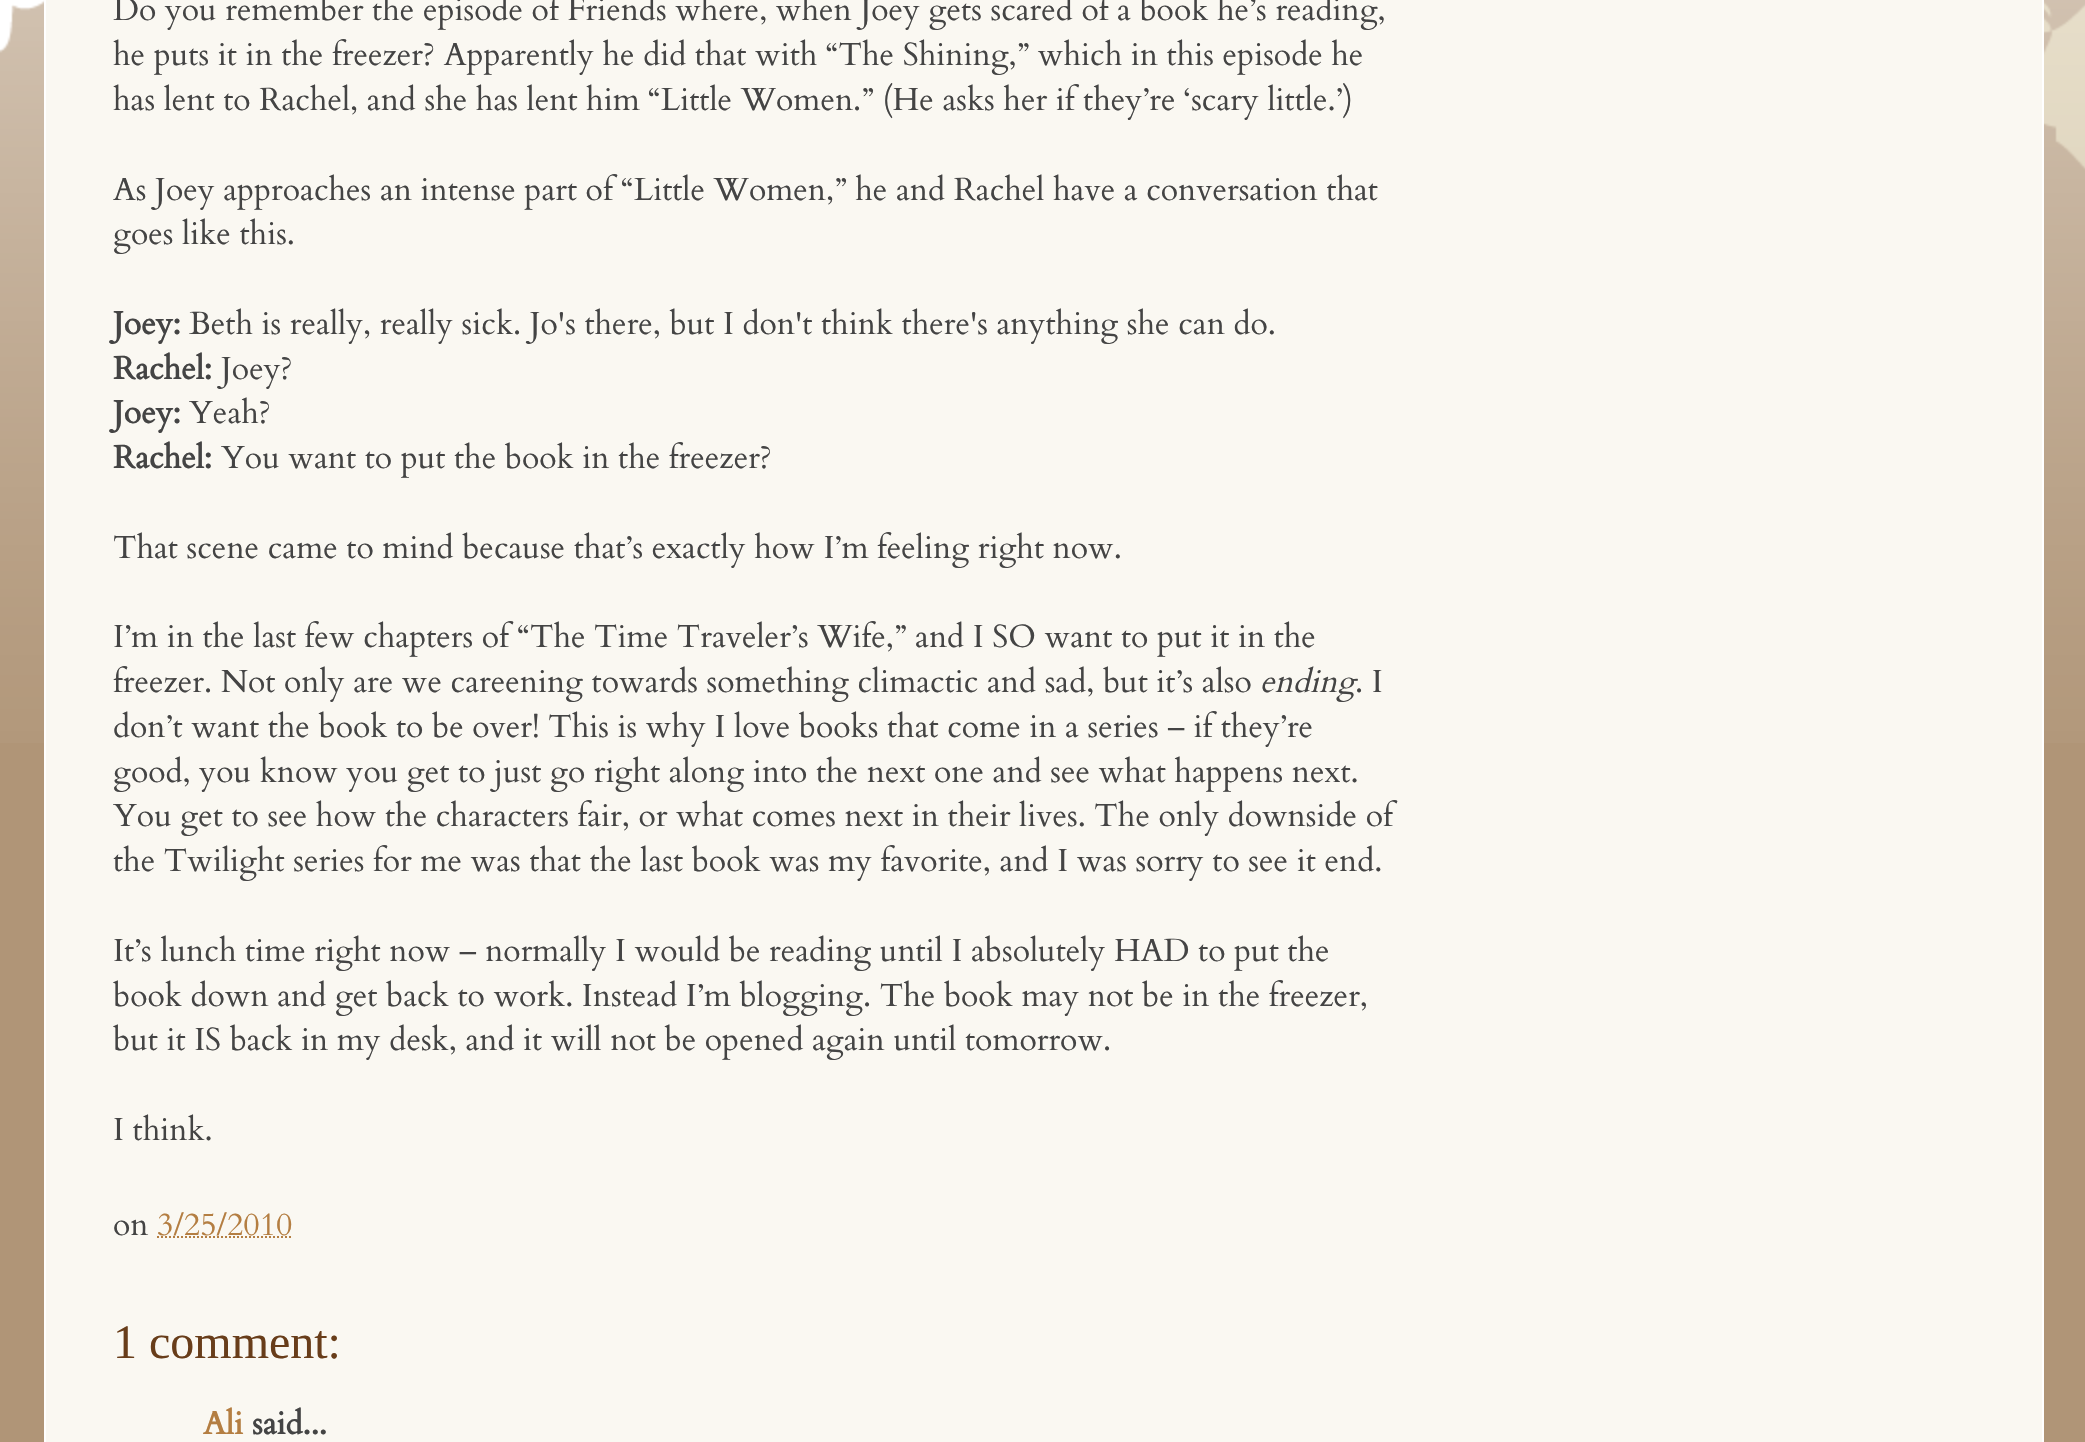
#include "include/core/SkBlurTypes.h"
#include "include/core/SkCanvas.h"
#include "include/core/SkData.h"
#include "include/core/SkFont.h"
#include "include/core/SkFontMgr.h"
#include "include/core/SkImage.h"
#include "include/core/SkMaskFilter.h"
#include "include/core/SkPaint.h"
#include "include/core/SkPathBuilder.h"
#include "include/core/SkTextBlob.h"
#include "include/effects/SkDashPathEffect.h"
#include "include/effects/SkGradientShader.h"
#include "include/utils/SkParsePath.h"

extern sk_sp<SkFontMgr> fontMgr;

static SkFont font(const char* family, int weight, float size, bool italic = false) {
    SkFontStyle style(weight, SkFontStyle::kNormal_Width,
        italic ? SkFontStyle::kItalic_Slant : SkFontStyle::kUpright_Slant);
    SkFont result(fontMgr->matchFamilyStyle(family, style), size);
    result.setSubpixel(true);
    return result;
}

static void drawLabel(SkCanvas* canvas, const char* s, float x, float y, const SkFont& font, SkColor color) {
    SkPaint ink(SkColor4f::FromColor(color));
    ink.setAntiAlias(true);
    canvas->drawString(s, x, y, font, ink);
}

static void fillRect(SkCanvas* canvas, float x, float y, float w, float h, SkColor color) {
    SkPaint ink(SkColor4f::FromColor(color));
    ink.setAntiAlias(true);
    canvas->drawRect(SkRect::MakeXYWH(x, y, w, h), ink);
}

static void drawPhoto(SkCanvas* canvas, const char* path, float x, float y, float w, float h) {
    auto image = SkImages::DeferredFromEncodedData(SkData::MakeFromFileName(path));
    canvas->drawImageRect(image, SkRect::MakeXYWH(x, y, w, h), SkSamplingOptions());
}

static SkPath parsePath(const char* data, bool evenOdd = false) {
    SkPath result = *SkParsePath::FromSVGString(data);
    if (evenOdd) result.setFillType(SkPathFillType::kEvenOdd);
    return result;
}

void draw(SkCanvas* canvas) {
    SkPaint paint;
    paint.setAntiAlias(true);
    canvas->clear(0xFFB09577);
    drawPhoto(canvas, "assets/img1.png", 0, 0, 2085, 743);
    fillRect(canvas, 46, 0, 1996, 1442, 0xFFFAF8F2);
    fillRect(canvas, 2042, 0, 2, 1442, 0xFFFFFFFF);
    fillRect(canvas, 44, 0, 2, 1442, 0xFFFFFFFF);
    SkFont font1 = font("Cardo", 400, 32);
    drawLabel(canvas, "Do you remember the episode of Friends where, when Joey gets scared of a book he’s reading,", 113, 20, font1, 0xFF444444);
    drawLabel(canvas, "he puts it in the freezer? Apparently he did that with “The Shining,” which in this episode he", 113, 65, font1, 0xFF444444);
    drawLabel(canvas, "has lent to Rachel, and she has lent him “Little Women.” (He asks her if they’re ‘scary little.’)", 113, 110, font1, 0xFF444444);
    drawLabel(canvas, "As Joey approaches an intense part of “Little Women,” he and Rachel have a conversation that", 113, 200, font1, 0xFF444444);
    drawLabel(canvas, "goes like this.", 113, 244, font1, 0xFF444444);
    SkFont font2 = font("Cardo", 700, 32);
    drawLabel(canvas, "Joey:", 113, 334, font2, 0xFF444444);
    drawLabel(canvas, "Beth is really, really sick. Jo's there, but I don't think there's anything she can do.", 189, 334, font1, 0xFF444444);
    drawLabel(canvas, "Rachel:", 113, 379, font2, 0xFF444444);
    drawLabel(canvas, "Joey?", 221, 379, font1, 0xFF444444);
    drawLabel(canvas, "Joey:", 113, 423, font2, 0xFF444444);
    drawLabel(canvas, "Yeah?", 189, 423, font1, 0xFF444444);
    drawLabel(canvas, "Rachel:", 113, 468, font2, 0xFF444444);
    drawLabel(canvas, "You want to put the book in the freezer?", 221, 468, font1, 0xFF444444);
    drawLabel(canvas, "That scene came to mind because that’s exactly how I’m feeling right now.", 113, 558, font1, 0xFF444444);
    drawLabel(canvas, "I’m in the last few chapters of “The Time Traveler’s Wife,” and I SO want to put it in the", 113, 647, font1, 0xFF444444);
    drawLabel(canvas, "freezer. Not only are we careening towards something climactic and sad, but it’s also", 113, 692, font1, 0xFF444444);
    SkFont font3 = font("Cardo", 400, 32, true);
    drawLabel(canvas, "ending", 1260, 692, font3, 0xFF444444);
    drawLabel(canvas, ". I", 1355, 692, font1, 0xFF444444);
    drawLabel(canvas, "don’t want the book to be over! This is why I love books that come in a series – if they’re", 113, 737, font1, 0xFF444444);
    drawLabel(canvas, "good, you know you get to just go right along into the next one and see what happens next.", 113, 782, font1, 0xFF444444);
    drawLabel(canvas, "You get to see how the characters fair, or what comes next in their lives. The only downside of", 113, 826, font1, 0xFF444444);
    drawLabel(canvas, "the Twilight series for me was that the last book was my favorite, and I was sorry to see it end.", 113, 871, font1, 0xFF444444);
    drawLabel(canvas, "It’s lunch time right now – normally I would be reading until I absolutely HAD to put the", 113, 961, font1, 0xFF444444);
    drawLabel(canvas, "book down and get back to work. Instead I’m blogging. The book may not be in the freezer,", 113, 1006, font1, 0xFF444444);
    drawLabel(canvas, "but it IS back in my desk, and it will not be opened again until tomorrow.", 113, 1050, font1, 0xFF444444);
    drawLabel(canvas, "I think.", 113, 1140, font1, 0xFF444444);
    drawLabel(canvas, "on", 113, 1235, font1, 0xFF444444);
    drawLabel(canvas, "3/25/2010", 157, 1235, font1, 0xFFB47E42);
    paint.setStroke(true);
    paint.setStrokeWidth(2);
    paint.setColor(0xFFB47E42);
    paint.setPathEffect(SkDashPathEffect::Make({{2, 2}}, 0));
    canvas->drawPath(parsePath("M157 1237H292.5"), paint);
    paint.setPathEffect(nullptr);
    SkFont font4 = font("Liberation Serif", 400, 48);
    drawLabel(canvas, "1 comment:", 113, 1358, font4, 0xFF683D1A);
    drawLabel(canvas, "Ali", 203, 1434, font2, 0xFFB47E42);
    drawLabel(canvas, "said...", 252, 1434, font2, 0xFF444444);
}
